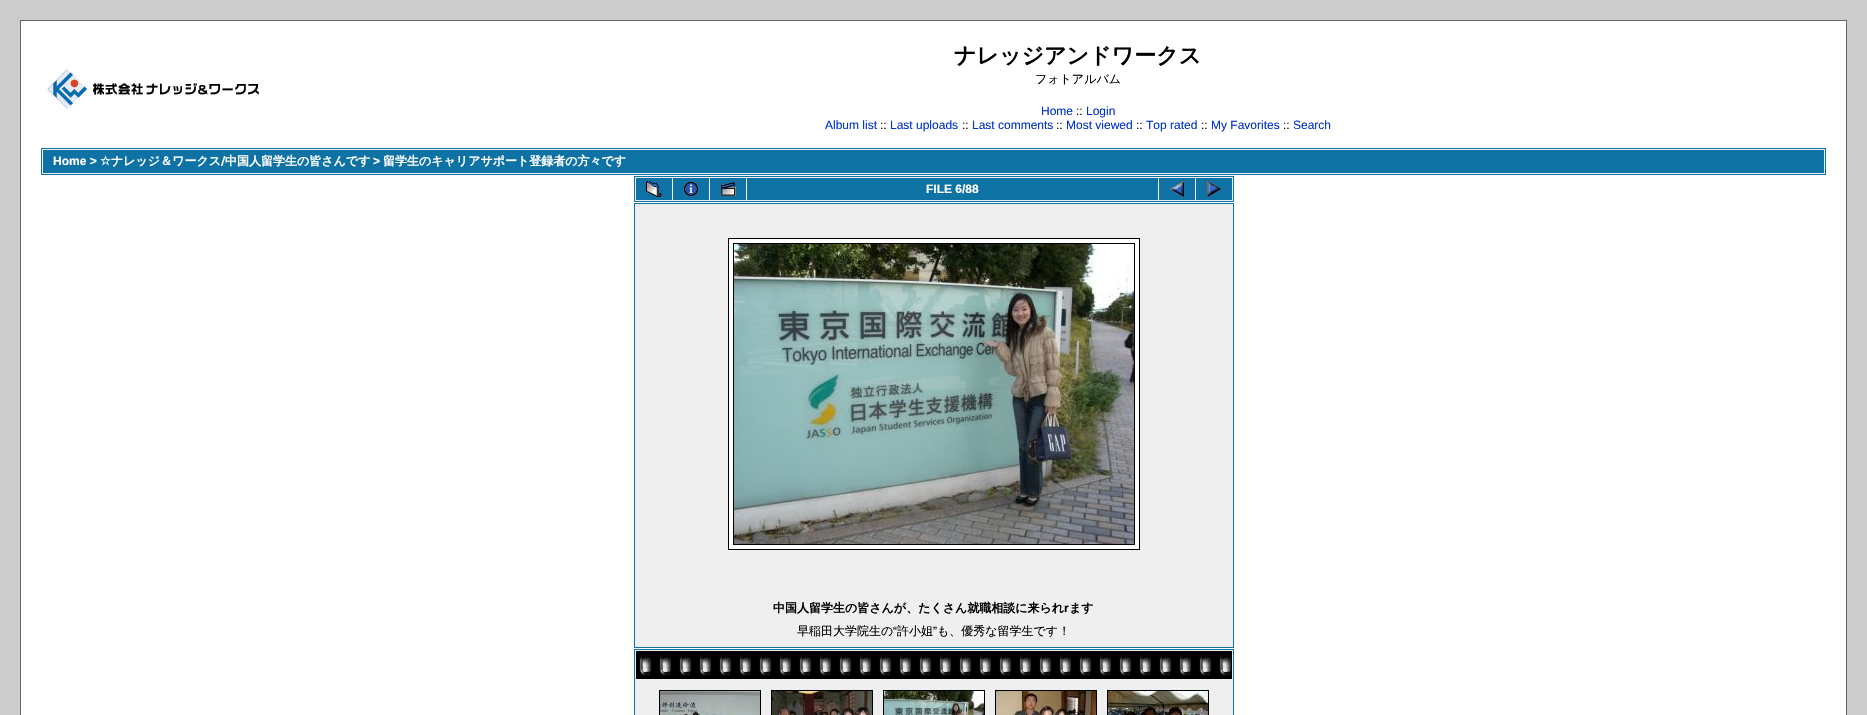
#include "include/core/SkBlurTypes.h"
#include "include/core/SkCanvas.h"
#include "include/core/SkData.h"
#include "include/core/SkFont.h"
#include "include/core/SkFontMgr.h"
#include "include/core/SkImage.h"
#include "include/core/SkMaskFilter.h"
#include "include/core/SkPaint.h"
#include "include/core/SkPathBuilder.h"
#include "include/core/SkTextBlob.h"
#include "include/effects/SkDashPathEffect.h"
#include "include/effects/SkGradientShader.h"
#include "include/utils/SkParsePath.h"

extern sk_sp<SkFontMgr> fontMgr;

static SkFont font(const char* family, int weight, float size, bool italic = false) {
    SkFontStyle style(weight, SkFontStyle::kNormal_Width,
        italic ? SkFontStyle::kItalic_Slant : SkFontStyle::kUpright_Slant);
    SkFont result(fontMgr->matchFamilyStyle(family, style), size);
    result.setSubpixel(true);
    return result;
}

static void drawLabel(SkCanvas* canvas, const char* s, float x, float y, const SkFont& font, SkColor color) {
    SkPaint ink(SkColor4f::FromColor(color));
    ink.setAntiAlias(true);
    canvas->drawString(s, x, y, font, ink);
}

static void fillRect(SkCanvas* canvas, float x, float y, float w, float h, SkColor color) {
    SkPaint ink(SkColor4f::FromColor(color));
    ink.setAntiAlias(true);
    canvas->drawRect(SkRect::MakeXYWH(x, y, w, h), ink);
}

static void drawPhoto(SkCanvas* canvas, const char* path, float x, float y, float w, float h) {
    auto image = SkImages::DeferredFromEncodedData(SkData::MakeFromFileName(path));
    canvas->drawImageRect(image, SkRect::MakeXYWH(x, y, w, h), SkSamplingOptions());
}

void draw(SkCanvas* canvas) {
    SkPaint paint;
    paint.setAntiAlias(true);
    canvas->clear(0xFFCCCCCC);
    paint.setColor(0xFFFFFFFF);
    canvas->drawRect(SkRect::MakeXYWH(20.5f, 20.5f, 1826, 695), paint);
    paint.setStroke(true);
    paint.setStrokeWidth(1);
    paint.setColor(0xFF666666);
    canvas->drawRect(SkRect::MakeXYWH(20.5f, 20.5f, 1826, 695), paint);
    drawPhoto(canvas, "assets/img1.png", 47, 69, 212, 40);
    SkFont font1 = font("WenQuanYi Zen Hei", 700, 22);
    drawLabel(canvas, "ナレッジアンドワークス", 954, 63, font1, 0xFF000000);
    SkFont font2 = font("WenQuanYi Zen Hei", 500, 12);
    drawLabel(canvas, "フォトアルバム", 1035, 83, font2, 0xFF000000);
    SkFont font3 = font("Liberation Sans", 400, 12);
    drawLabel(canvas, "Home", 1041, 115, font3, 0xFF0033CC);
    drawLabel(canvas, "::", 1076, 115, font3, 0xFF000000);
    drawLabel(canvas, "Login", 1086, 115, font3, 0xFF0033CC);
    drawLabel(canvas, "Album list", 825, 129, font3, 0xFF0033CC);
    drawLabel(canvas, "::", 880, 129, font3, 0xFF000000);
    drawLabel(canvas, "Last uploads", 890, 129, font3, 0xFF0033CC);
    drawLabel(canvas, "::", 962, 129, font3, 0xFF000000);
    drawLabel(canvas, "Last comments", 972, 129, font3, 0xFF0033CC);
    drawLabel(canvas, "::", 1056, 129, font3, 0xFF000000);
    drawLabel(canvas, "Most viewed", 1066, 129, font3, 0xFF0033CC);
    drawLabel(canvas, "::", 1136, 129, font3, 0xFF000000);
    drawLabel(canvas, "Top rated", 1146, 129, font3, 0xFF0033CC);
    drawLabel(canvas, "::", 1201, 129, font3, 0xFF000000);
    drawLabel(canvas, "My Favorites", 1211, 129, font3, 0xFF0033CC);
    drawLabel(canvas, "::", 1283, 129, font3, 0xFF000000);
    drawLabel(canvas, "Search", 1293, 129, font3, 0xFF0033CC);
    paint.setStroke(false);
    paint.setColor(0xFFEFEFEF);
    canvas->drawRect(SkRect::MakeXYWH(41.5f, 148.5f, 1784, 26), paint);
    paint.setStroke(true);
    paint.setColor(0xFF0E72A4);
    canvas->drawRect(SkRect::MakeXYWH(41.5f, 148.5f, 1784, 26), paint);
    fillRect(canvas, 43, 150, 1781, 23, 0xFF0E72A4);
    SkFont font4 = font("Liberation Sans", 700, 12);
    drawLabel(canvas, "Home >", 53, 165, font4, 0xFFFFFFFF);
    SkFont font5 = font("DejaVu Sans", 700, 12);
    drawLabel(canvas, "☆", 100, 165, font5, 0xFFFFFFFF);
    SkFont font6 = font("WenQuanYi Zen Hei", 700, 12);
    drawLabel(canvas, "ナレッジ＆ワークス", 111, 165, font6, 0xFFFFFFFF);
    drawLabel(canvas, "/", 221, 165, font5, 0xFFFFFFFF);
    drawLabel(canvas, "中国人留学生の皆さんです", 225, 165, font6, 0xFFFFFFFF);
    drawLabel(canvas, ">", 373, 165, font4, 0xFFFFFFFF);
    drawLabel(canvas, "留学生のキャリアサポート登録者の方々です", 383, 165, font6, 0xFFFFFFFF);
    paint.setStroke(false);
    paint.setColor(0xFFEFEFEF);
    canvas->drawRect(SkRect::MakeXYWH(634.5f, 176.5f, 599, 25), paint);
    paint.setStroke(true);
    paint.setColor(0xFF0E72A4);
    canvas->drawRect(SkRect::MakeXYWH(634.5f, 176.5f, 599, 25), paint);
    fillRect(canvas, 636, 178, 36, 22, 0xFF0E72A4);
    drawPhoto(canvas, "assets/img2.png", 646, 181, 16, 16);
    fillRect(canvas, 673, 178, 36, 22, 0xFF0E72A4);
    drawPhoto(canvas, "assets/img3.png", 684, 182, 14, 14);
    fillRect(canvas, 710, 178, 36, 22, 0xFF0E72A4);
    drawPhoto(canvas, "assets/img4.png", 721, 182, 15, 14);
    fillRect(canvas, 747, 178, 411, 22, 0xFF0E72A4);
    drawLabel(canvas, "FILE 6/88", 926, 193, font4, 0xFFFFFFFF);
    fillRect(canvas, 1159, 178, 36, 22, 0xFF0E72A4);
    drawPhoto(canvas, "assets/img5.png", 1170, 181, 14, 16);
    fillRect(canvas, 1196, 178, 36, 22, 0xFF0E72A4);
    drawPhoto(canvas, "assets/img6.png", 1207, 181, 14, 16);
    paint.setStroke(false);
    paint.setColor(0xFFEFEFEF);
    canvas->drawRect(SkRect::MakeXYWH(634.5f, 203.5f, 599, 444), paint);
    paint.setStroke(true);
    paint.setColor(0xFF0E72A4);
    canvas->drawRect(SkRect::MakeXYWH(634.5f, 203.5f, 599, 444), paint);
    paint.setStroke(false);
    paint.setColor(0xFFFFFFFF);
    canvas->drawRect(SkRect::MakeXYWH(728.5f, 238.5f, 411, 311), paint);
    paint.setStroke(true);
    paint.setColor(0xFF000000);
    canvas->drawRect(SkRect::MakeXYWH(728.5f, 238.5f, 411, 311), paint);
    canvas->drawRect(SkRect::MakeXYWH(733.5f, 243.5f, 401, 301), paint);
    drawPhoto(canvas, "assets/img7.png", 734, 244, 400, 300);
    drawLabel(canvas, "中国人留学生の皆さんが、たくさん就職相談に来られ", 773, 612, font6, 0xFF000000);
    drawLabel(canvas, "r", 1064, 612, font4, 0xFF000000);
    drawLabel(canvas, "ます", 1069, 612, font6, 0xFF000000);
    drawLabel(canvas, "早稲田大学院生の", 797, 635, font2, 0xFF000000);
    drawLabel(canvas, "“", 893, 635, font3, 0xFF000000);
    drawLabel(canvas, "許小姐", 897, 635, font2, 0xFF000000);
    drawLabel(canvas, "”", 933, 635, font3, 0xFF000000);
    drawLabel(canvas, "も、優秀な留学生です！", 937, 635, font2, 0xFF000000);
    paint.setStroke(false);
    paint.setColor(0xFFEFEFEF);
    canvas->drawRect(SkRect::MakeXYWH(634.5f, 649.5f, 599, 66), paint);
    paint.setStroke(true);
    paint.setColor(0xFF0E72A4);
    canvas->drawRect(SkRect::MakeXYWH(634.5f, 649.5f, 599, 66), paint);
    drawPhoto(canvas, "assets/img8.png", 636, 651, 596, 28);
    paint.setColor(0xFF000000);
    canvas->drawRect(SkRect::MakeXYWH(659.5f, 690.5f, 101, 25), paint);
    drawPhoto(canvas, "assets/img9.png", 660, 691, 100, 24);
    canvas->drawRect(SkRect::MakeXYWH(771.5f, 690.5f, 101, 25), paint);
    drawPhoto(canvas, "assets/img10.png", 772, 691, 100, 24);
    canvas->drawRect(SkRect::MakeXYWH(883.5f, 690.5f, 101, 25), paint);
    drawPhoto(canvas, "assets/img11.png", 884, 691, 100, 24);
    canvas->drawRect(SkRect::MakeXYWH(995.5f, 690.5f, 101, 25), paint);
    drawPhoto(canvas, "assets/img12.png", 996, 691, 100, 24);
    canvas->drawRect(SkRect::MakeXYWH(1107.5f, 690.5f, 101, 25), paint);
    drawPhoto(canvas, "assets/img13.png", 1108, 691, 100, 24);
}
